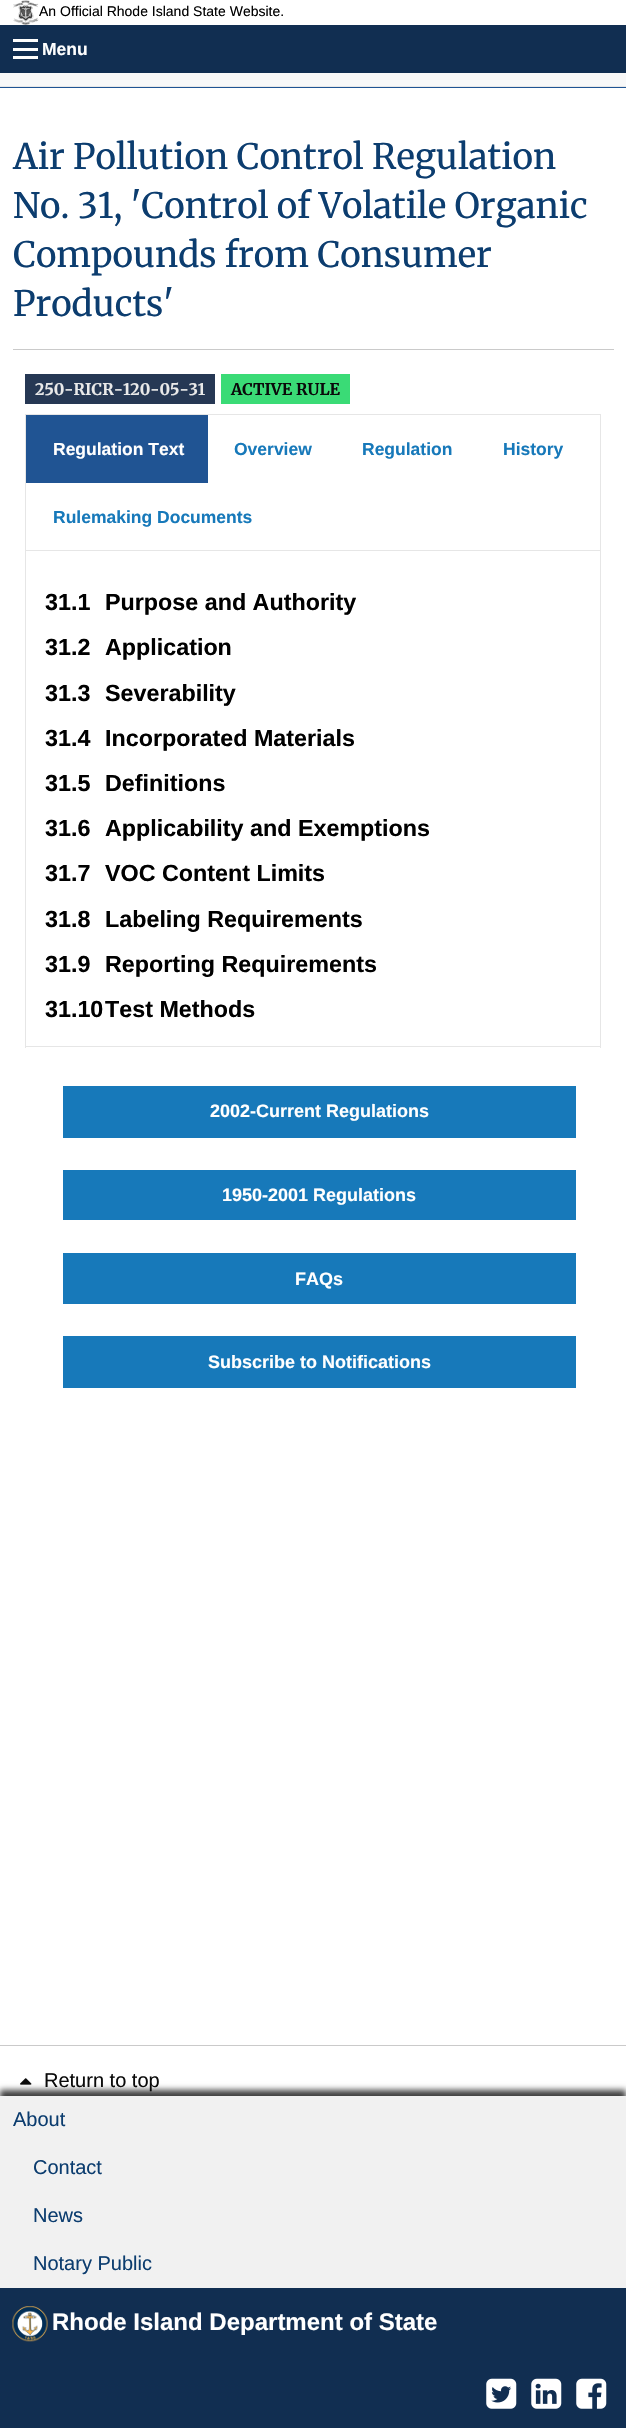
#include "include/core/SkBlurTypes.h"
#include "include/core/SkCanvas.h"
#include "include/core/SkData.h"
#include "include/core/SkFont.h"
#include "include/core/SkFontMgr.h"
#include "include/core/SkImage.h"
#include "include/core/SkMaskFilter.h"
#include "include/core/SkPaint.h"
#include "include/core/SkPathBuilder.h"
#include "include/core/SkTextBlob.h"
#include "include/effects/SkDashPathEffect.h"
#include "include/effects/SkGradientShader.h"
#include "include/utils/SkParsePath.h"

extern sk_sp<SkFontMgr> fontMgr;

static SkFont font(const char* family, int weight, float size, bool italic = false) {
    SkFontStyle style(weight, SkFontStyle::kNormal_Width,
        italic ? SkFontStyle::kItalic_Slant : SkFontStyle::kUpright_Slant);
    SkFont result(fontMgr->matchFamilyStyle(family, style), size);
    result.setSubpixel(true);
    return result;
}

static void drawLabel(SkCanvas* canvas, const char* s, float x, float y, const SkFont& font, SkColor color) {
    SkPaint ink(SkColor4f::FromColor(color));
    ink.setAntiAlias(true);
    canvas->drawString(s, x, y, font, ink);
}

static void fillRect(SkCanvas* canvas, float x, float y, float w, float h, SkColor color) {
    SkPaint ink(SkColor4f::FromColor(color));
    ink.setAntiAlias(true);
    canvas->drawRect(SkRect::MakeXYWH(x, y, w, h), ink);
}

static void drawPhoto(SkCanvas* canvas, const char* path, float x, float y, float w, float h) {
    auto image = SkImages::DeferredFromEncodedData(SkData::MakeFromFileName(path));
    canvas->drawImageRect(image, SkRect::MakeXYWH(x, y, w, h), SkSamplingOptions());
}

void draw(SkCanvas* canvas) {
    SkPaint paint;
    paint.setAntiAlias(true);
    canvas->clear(0xFFFFFFFF);
    fillRect(canvas, 0, 87, 626, 1, 0xFF205493);
    drawPhoto(canvas, "assets/img1.png", 13, 0, 26, 25);
    SkFont font1 = font("Liberation Sans", 400, 14);
    drawLabel(canvas, "An Official Rhode Island State Website.", 39, 16, font1, 0xFF000000);
    fillRect(canvas, 0, 73, 626, 13, 0xFFF8F8F8);
    fillRect(canvas, 0, 86, 626, 1, 0xFFE7E7E7);
    fillRect(canvas, 0, 25, 626, 48, 0xFF112E51);
    fillRect(canvas, 13, 56, 25, 3, 0xFFFEFEFE);
    fillRect(canvas, 13, 48, 25, 3, 0xFFFEFEFE);
    fillRect(canvas, 13, 39, 25, 3, 0xFFFEFEFE);
    SkFont font2 = font("Liberation Sans", 700, 17.5f);
    drawLabel(canvas, "Menu", 42, 55, font2, 0xFFFFFFFF);
    SkFont font3 = font("Merriweather", 400, 35);
    drawLabel(canvas, "Air Pollution Control Regulation", 13, 169, font3, 0xFF0C3D6F);
    drawLabel(canvas, "No. 31, 'Control of Volatile Organic", 13, 218, font3, 0xFF0C3D6F);
    drawLabel(canvas, "Compounds from Consumer", 13, 267, font3, 0xFF0C3D6F);
    drawLabel(canvas, "Products'", 13, 316, font3, 0xFF0C3D6F);
    fillRect(canvas, 13, 349, 601, 1, 0xFFCACACA);
    fillRect(canvas, 25, 374, 190, 30, 0xFF263854);
    SkFont font4 = font("Merriweather", 700, 16);
    drawLabel(canvas, "250-RICR-120-05-31", 35, 395, font4, 0xFFE9E9E9);
    fillRect(canvas, 221, 374, 129, 30, 0xFF3ADB76);
    drawLabel(canvas, "ACTIVE RULE", 231, 395, font4, 0xFF0A0A0A);
    paint.setStroke(true);
    paint.setStrokeWidth(1);
    paint.setColor(0xFFE6E6E6);
    canvas->drawRect(SkRect::MakeXYWH(25.5f, 414.5f, 575, 136), paint);
    fillRect(canvas, 26, 415, 182, 68, 0xFF205493);
    drawLabel(canvas, "Regulation Text", 53, 455, font2, 0xFFFFFFFF);
    drawLabel(canvas, "Overview", 234, 455, font2, 0xFF1779BA);
    drawLabel(canvas, "Regulation", 362, 455, font2, 0xFF1779BA);
    drawLabel(canvas, "History", 503, 455, font2, 0xFF1779BA);
    drawLabel(canvas, "Rulemaking Documents", 53, 523, font2, 0xFF1779BA);
    fillRect(canvas, 600, 551, 1, 497, 0xFFE6E6E6);
    fillRect(canvas, 25, 1046, 576, 1, 0xFFE6E6E6);
    fillRect(canvas, 25, 551, 1, 497, 0xFFE6E6E6);
    SkFont font5 = font("Liberation Sans", 700, 23.3f);
    drawLabel(canvas, "31.1", 45, 610, font5, 0xFF000000);
    drawLabel(canvas, "Purpose and Authority", 105, 610, font5, 0xFF000000);
    drawLabel(canvas, "31.2", 45, 655, font5, 0xFF000000);
    drawLabel(canvas, "Application", 105, 655, font5, 0xFF000000);
    drawLabel(canvas, "31.3", 45, 701, font5, 0xFF000000);
    drawLabel(canvas, "Severability", 105, 701, font5, 0xFF000000);
    drawLabel(canvas, "31.4", 45, 746, font5, 0xFF000000);
    drawLabel(canvas, "Incorporated Materials", 105, 746, font5, 0xFF000000);
    drawLabel(canvas, "31.5", 45, 791, font5, 0xFF000000);
    drawLabel(canvas, "Definitions", 105, 791, font5, 0xFF000000);
    drawLabel(canvas, "31.6", 45, 836, font5, 0xFF000000);
    drawLabel(canvas, "Applicability and Exemptions", 105, 836, font5, 0xFF000000);
    drawLabel(canvas, "31.7", 45, 881, font5, 0xFF000000);
    drawLabel(canvas, "VOC Content Limits", 105, 881, font5, 0xFF000000);
    drawLabel(canvas, "31.8", 45, 927, font5, 0xFF000000);
    drawLabel(canvas, "Labeling Requirements", 105, 927, font5, 0xFF000000);
    drawLabel(canvas, "31.9", 45, 972, font5, 0xFF000000);
    drawLabel(canvas, "Reporting Requirements", 105, 972, font5, 0xFF000000);
    drawLabel(canvas, "31.10", 45, 1017, font5, 0xFF000000);
    drawLabel(canvas, "Test Methods", 105, 1017, font5, 0xFF000000);
    fillRect(canvas, 63, 1086, 513, 52, 0xFF1779BA);
    SkFont font6 = font("Liberation Sans", 700, 18);
    drawLabel(canvas, "2002-Current Regulations", 210, 1117, font6, 0xFFFFFFFF);
    fillRect(canvas, 63, 1170, 513, 50, 0xFF1779BA);
    drawLabel(canvas, "1950-2001 Regulations", 222, 1201, font6, 0xFFFFFFFF);
    fillRect(canvas, 63, 1253, 513, 51, 0xFF1779BA);
    drawLabel(canvas, "FAQs", 295, 1285, font6, 0xFFFFFFFF);
    fillRect(canvas, 63, 1336, 513, 52, 0xFF1779BA);
    drawLabel(canvas, "Subscribe to Notifications", 208, 1368, font6, 0xFFFFFFFF);
    fillRect(canvas, 0, 2288, 626, 140, 0xFF112E51);
    fillRect(canvas, 0, 2045, 626, 1, 0xFFCACACA);
    paint.setStroke(false);
    paint.setColor(0xBF000000);
    paint.setMaskFilter(SkMaskFilter::MakeBlur(kNormal_SkBlurStyle, 3));
    canvas->drawRect(SkRect::MakeXYWH(0, 2090, 626, 191), paint);
    paint.setMaskFilter(nullptr);
    drawPhoto(canvas, "assets/img2.png", 20, 2078, 12, 7);
    SkFont font7 = font("Liberation Sans", 400, 20);
    drawLabel(canvas, "Return to top", 44, 2087, font7, 0xFF0A0A0A);
    fillRect(canvas, 0, 2096, 626, 192, 0xFFF1F1F1);
    drawLabel(canvas, "About", 13, 2126, font7, 0xFF0C3D6F);
    drawLabel(canvas, "Contact", 33, 2174, font7, 0xFF0C3D6F);
    drawLabel(canvas, "News", 33, 2222, font7, 0xFF0C3D6F);
    drawLabel(canvas, "Notary Public", 33, 2270, font7, 0xFF0C3D6F);
    drawPhoto(canvas, "assets/img3.png", 12, 2306, 36, 36);
    SkFont font8 = font("Liberation Sans", 700, 24);
    drawLabel(canvas, "Rhode Island Department of State", 52, 2330, font8, 0xFFFFFFFF);
    drawPhoto(canvas, "assets/img4.png", 486, 2378, 31, 31);
    drawPhoto(canvas, "assets/img5.png", 531, 2378, 31, 31);
    drawPhoto(canvas, "assets/img6.png", 576, 2378, 31, 31);
}
